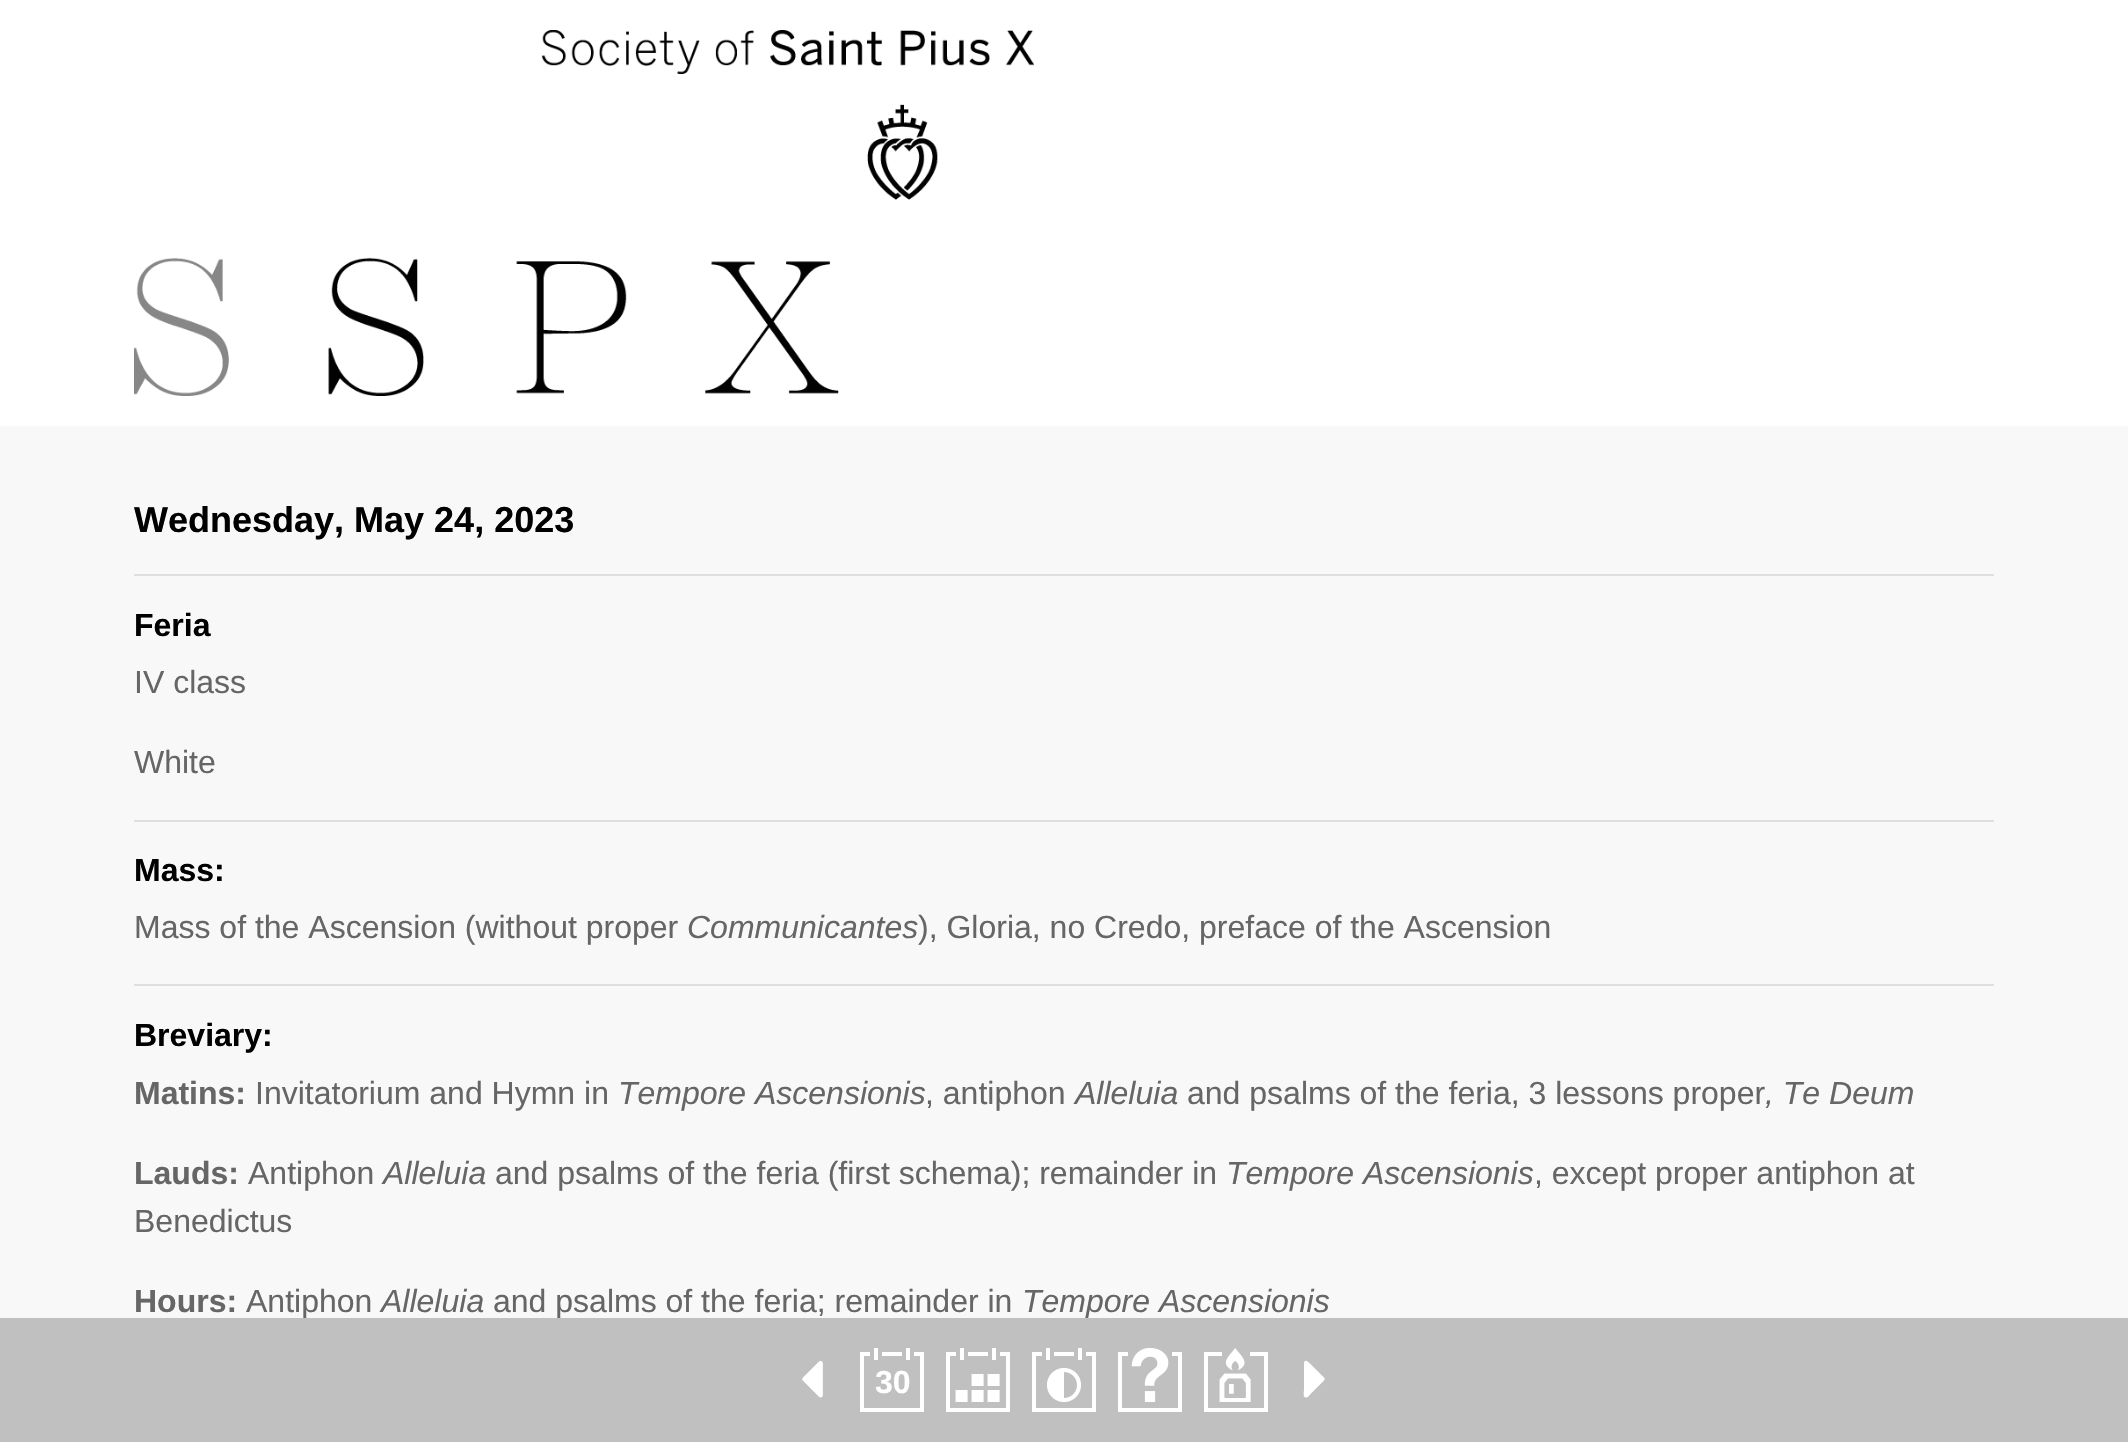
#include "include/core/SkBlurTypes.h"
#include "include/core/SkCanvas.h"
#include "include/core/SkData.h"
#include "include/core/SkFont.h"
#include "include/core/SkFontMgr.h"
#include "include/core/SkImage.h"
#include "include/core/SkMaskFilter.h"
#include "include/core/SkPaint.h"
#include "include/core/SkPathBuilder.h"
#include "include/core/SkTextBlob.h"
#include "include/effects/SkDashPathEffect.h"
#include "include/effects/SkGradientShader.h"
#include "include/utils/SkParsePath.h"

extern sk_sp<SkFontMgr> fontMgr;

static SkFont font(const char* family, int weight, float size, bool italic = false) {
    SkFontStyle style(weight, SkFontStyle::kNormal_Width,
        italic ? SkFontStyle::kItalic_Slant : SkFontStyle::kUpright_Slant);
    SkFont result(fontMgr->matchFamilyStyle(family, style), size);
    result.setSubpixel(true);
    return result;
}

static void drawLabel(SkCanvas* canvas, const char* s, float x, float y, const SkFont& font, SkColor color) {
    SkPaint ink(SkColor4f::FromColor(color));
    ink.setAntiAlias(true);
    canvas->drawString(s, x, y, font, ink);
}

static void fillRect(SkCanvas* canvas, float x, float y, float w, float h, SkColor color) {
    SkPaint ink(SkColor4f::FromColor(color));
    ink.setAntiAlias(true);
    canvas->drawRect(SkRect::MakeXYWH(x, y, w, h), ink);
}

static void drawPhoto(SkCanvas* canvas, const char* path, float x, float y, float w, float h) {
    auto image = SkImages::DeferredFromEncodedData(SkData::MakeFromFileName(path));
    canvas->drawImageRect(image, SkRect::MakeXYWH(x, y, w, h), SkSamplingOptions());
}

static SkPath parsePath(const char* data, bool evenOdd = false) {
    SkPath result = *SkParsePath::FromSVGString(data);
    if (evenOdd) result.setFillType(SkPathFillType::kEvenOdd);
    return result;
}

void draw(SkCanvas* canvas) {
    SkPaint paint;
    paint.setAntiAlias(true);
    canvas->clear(0xFFF8F8F8);
    fillRect(canvas, 0, 0, 2128, 426, 0xFFFFFFFF);
    drawPhoto(canvas, "assets/img1.png", 134, 30, 900, 366);
    SkFont font1 = font("Liberation Sans", 700, 36);
    drawLabel(canvas, "Wednesday, May 24, 2023", 134, 532, font1, 0xFF000000);
    fillRect(canvas, 134, 574, 1860, 2, 0xFFDFDFDF);
    SkFont font2 = font("Liberation Sans", 700, 32);
    drawLabel(canvas, "Feria", 134, 636, font2, 0xFF000000);
    SkFont font3 = font("Liberation Sans", 400, 32);
    drawLabel(canvas, "IV class", 134, 693, font3, 0xFF666666);
    drawLabel(canvas, "White", 134, 773, font3, 0xFF666666);
    fillRect(canvas, 134, 820, 1860, 2, 0xFFDFDFDF);
    drawLabel(canvas, "Mass:", 134, 881, font2, 0xFF000000);
    drawLabel(canvas, "Mass of the Ascension (without proper", 134, 938, font3, 0xFF666666);
    SkFont font4 = font("Liberation Sans", 400, 32, true);
    drawLabel(canvas, "Communicantes", 687, 938, font4, 0xFF666666);
    drawLabel(canvas, "), Gloria, no Credo, preface of the Ascension", 918, 938, font3, 0xFF666666);
    fillRect(canvas, 134, 984, 1860, 2, 0xFFDFDFDF);
    drawLabel(canvas, "Breviary:", 134, 1046, font2, 0xFF000000);
    drawLabel(canvas, "Matins:", 134, 1104, font2, 0xFF666666);
    drawLabel(canvas, "Invitatorium and Hymn in", 255, 1104, font3, 0xFF666666);
    drawLabel(canvas, "Tempore Ascensionis", 618, 1104, font4, 0xFF666666);
    drawLabel(canvas, ", antiphon", 925, 1104, font3, 0xFF666666);
    drawLabel(canvas, "Alleluia", 1075, 1104, font4, 0xFF666666);
    drawLabel(canvas, "and psalms of the feria, 3 lessons proper", 1187, 1104, font3, 0xFF666666);
    drawLabel(canvas, ", Te Deum", 1765, 1104, font4, 0xFF666666);
    drawLabel(canvas, "Lauds:", 134, 1184, font2, 0xFF666666);
    drawLabel(canvas, "Antiphon", 248, 1184, font3, 0xFF666666);
    drawLabel(canvas, "Alleluia", 383, 1184, font4, 0xFF666666);
    drawLabel(canvas, "and psalms of the feria (first schema); remainder in", 495, 1184, font3, 0xFF666666);
    drawLabel(canvas, "Tempore Ascensionis", 1226, 1184, font4, 0xFF666666);
    drawLabel(canvas, ", except proper antiphon at", 1534, 1184, font3, 0xFF666666);
    drawLabel(canvas, "Benedictus", 134, 1232, font3, 0xFF666666);
    drawLabel(canvas, "Hours:", 134, 1312, font2, 0xFF666666);
    drawLabel(canvas, "Antiphon", 246, 1312, font3, 0xFF666666);
    drawLabel(canvas, "Alleluia", 381, 1312, font4, 0xFF666666);
    drawLabel(canvas, "and psalms of the feria; remainder in", 493, 1312, font3, 0xFF666666);
    drawLabel(canvas, "Tempore Ascensionis", 1022, 1312, font4, 0xFF666666);
    fillRect(canvas, 0, 1318, 2128, 124, 0xFFC0C0C0);
    drawPhoto(canvas, "assets/img2.png", 802, 1360, 21, 38);
    drawPhoto(canvas, "assets/img3.png", 860, 1348, 64, 64);
    drawLabel(canvas, "30", 875, 1393, font2, 0xFFFFFFFF);
    drawPhoto(canvas, "assets/img4.png", 946, 1348, 64, 64);
    drawPhoto(canvas, "assets/img5.png", 1032, 1348, 64, 64);
    drawPhoto(canvas, "assets/img6.png", 1118, 1348, 64, 64);
    drawPhoto(canvas, "assets/img7.png", 1204, 1348, 64, 64);
    paint.setColor(0xFFFFFFFF);
    canvas->drawPath(parsePath("M1324 1377.5C1326 1379.5 1322.5 1382 1321 1383.5L1310.5 1394C1309.5 1395.5 1307 1399 1304.5 1397C1303 1395 1304 1390.5 1304 1390V1362.5C1305.5 1358 1309.5 1363 1310.5 1364Z"), paint);
}
